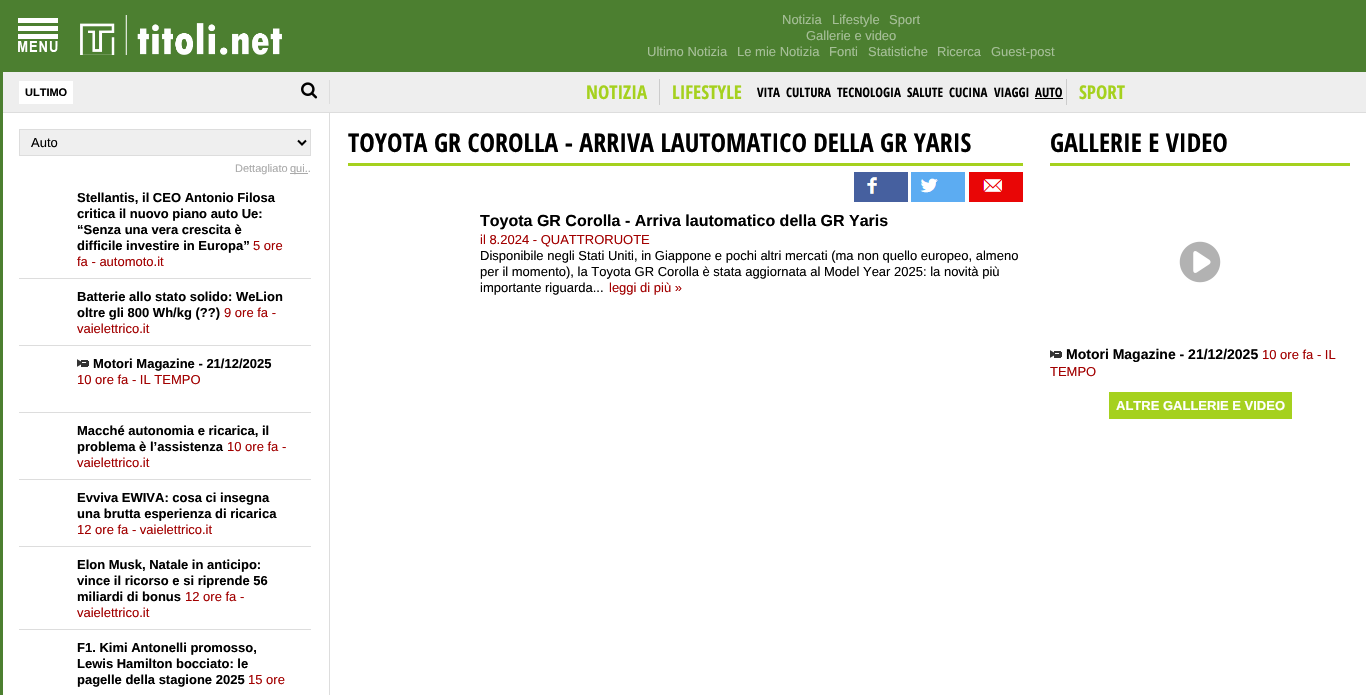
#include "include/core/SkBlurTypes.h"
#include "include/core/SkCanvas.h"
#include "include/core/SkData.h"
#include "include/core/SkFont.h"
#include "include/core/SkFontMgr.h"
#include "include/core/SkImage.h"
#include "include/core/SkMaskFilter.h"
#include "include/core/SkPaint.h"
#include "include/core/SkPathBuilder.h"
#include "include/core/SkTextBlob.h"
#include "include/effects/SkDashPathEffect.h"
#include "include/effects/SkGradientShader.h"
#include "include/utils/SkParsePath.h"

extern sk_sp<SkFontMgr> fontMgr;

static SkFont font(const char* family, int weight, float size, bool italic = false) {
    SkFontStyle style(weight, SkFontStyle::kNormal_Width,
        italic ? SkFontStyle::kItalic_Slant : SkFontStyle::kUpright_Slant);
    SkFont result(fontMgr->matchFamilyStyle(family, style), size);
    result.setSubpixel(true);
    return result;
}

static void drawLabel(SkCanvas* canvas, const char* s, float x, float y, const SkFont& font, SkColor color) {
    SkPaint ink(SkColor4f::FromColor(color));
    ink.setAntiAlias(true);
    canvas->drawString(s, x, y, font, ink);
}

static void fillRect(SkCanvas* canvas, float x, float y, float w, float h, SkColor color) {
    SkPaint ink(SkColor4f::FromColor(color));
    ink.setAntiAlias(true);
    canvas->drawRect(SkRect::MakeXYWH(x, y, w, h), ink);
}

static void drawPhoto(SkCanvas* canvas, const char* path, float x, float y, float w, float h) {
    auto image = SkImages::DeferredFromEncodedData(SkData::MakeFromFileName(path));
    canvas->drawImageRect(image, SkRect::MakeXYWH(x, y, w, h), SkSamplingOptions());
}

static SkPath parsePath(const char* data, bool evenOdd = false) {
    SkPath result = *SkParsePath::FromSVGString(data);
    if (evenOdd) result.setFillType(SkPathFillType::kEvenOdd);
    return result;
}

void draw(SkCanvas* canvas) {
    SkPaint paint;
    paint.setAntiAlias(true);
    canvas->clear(0xFFFFFFFF);
    fillRect(canvas, 0, 0, 3, 695, 0xFF4C7F30);
    fillRect(canvas, 3, 0, 1363, 72, 0xFF4C7F30);
    drawPhoto(canvas, "assets/img1.png", 18, 18, 40, 34);
    drawPhoto(canvas, "assets/img2.png", 80, 15, 202, 40);
    SkFont font1 = font("Liberation Sans", 400, 13);
    drawLabel(canvas, "Notizia", 782, 24, font1, 0xFFA6BF98);
    drawLabel(canvas, "Lifestyle", 832, 24, font1, 0xFFA6BF98);
    drawLabel(canvas, "Sport", 889, 24, font1, 0xFFA6BF98);
    drawLabel(canvas, "Gallerie e video", 806, 40, font1, 0xFFA6BF98);
    drawLabel(canvas, "Ultimo Notizia", 647, 56, font1, 0xFFA6BF98);
    drawLabel(canvas, "Le mie Notizia", 737, 56, font1, 0xFFA6BF98);
    drawLabel(canvas, "Fonti", 829, 56, font1, 0xFFA6BF98);
    drawLabel(canvas, "Statistiche", 868, 56, font1, 0xFFA6BF98);
    drawLabel(canvas, "Ricerca", 937, 56, font1, 0xFFA6BF98);
    drawLabel(canvas, "Guest-post", 991, 56, font1, 0xFFA6BF98);
    fillRect(canvas, 3, 72, 1363, 40, 0xFFEEEEEE);
    fillRect(canvas, 3, 112, 1363, 1, 0xFFDDDDDD);
    fillRect(canvas, 329, 80, 1, 24, 0xFFDDDDDD);
    fillRect(canvas, 19, 81, 54, 23, 0xFFFFFFFF);
    SkFont font2 = font("Liberation Sans", 700, 11);
    drawLabel(canvas, "ULTIMO", 25, 96, font2, 0xFF000000);
    drawPhoto(canvas, "assets/img3.png", 301, 82, 17, 17);
    SkFont font3 = font("Open Sans Condensed", 700, 19);
    drawLabel(canvas, "NOTIZIA", 586, 99, font3, 0xFFA5D11E);
    drawLabel(canvas, "LIFESTYLE", 672, 99, font3, 0xFFA5D11E);
    fillRect(canvas, 659, 79, 1, 26, 0xFFCCCCCC);
    SkFont font4 = font("Open Sans Condensed", 700, 13);
    drawLabel(canvas, "VITA", 757, 97, font4, 0xFF000000);
    drawLabel(canvas, "CULTURA", 786, 97, font4, 0xFF000000);
    drawLabel(canvas, "TECNOLOGIA", 837, 97, font4, 0xFF000000);
    drawLabel(canvas, "SALUTE", 907, 97, font4, 0xFF000000);
    drawLabel(canvas, "CUCINA", 949, 97, font4, 0xFF000000);
    drawLabel(canvas, "VIAGGI", 994, 97, font4, 0xFF000000);
    drawLabel(canvas, "AUTO", 1035, 97, font4, 0xFF000000);
    fillRect(canvas, 1035, 98, 28, 1, 0xFF000000);
    drawLabel(canvas, "SPORT", 1079, 99, font3, 0xFFA5D11E);
    fillRect(canvas, 1066, 79, 1, 26, 0xFFCCCCCC);
    fillRect(canvas, 329, 113, 1, 582, 0xFFDDDDDD);
    paint.setColor(0xFFEFEFEF);
    canvas->drawRect(SkRect::MakeXYWH(19.5f, 129.5f, 291, 26), paint);
    paint.setStroke(true);
    paint.setStrokeWidth(1);
    paint.setColor(0xFFDDDDDD);
    canvas->drawRect(SkRect::MakeXYWH(19.5f, 129.5f, 291, 26), paint);
    paint.setStrokeWidth(2);
    paint.setColor(0xFF000000);
    canvas->drawPath(parsePath("M298 140.5L302 144.5L306 140.5"), paint);
    drawLabel(canvas, "Auto", 31, 147, font1, 0xFF000000);
    SkFont font5 = font("Liberation Sans", 400, 11);
    drawLabel(canvas, "Dettagliato", 235, 172, font5, 0xFFAAAAAA);
    fillRect(canvas, 290, 173, 18, 1, 0xFFAAAAAA);
    drawLabel(canvas, "qui..", 290, 172, font5, 0xFFAAAAAA);
    fillRect(canvas, 19, 278, 292, 1, 0xFFDDDDDD);
    SkFont font6 = font("Liberation Sans", 700, 13);
    drawLabel(canvas, "Stellantis, il CEO Antonio Filosa", 77, 202, font6, 0xFF000000);
    drawLabel(canvas, "critica il nuovo piano auto Ue:", 77, 218, font6, 0xFF000000);
    drawLabel(canvas, "“Senza una vera crescita è", 77, 234, font6, 0xFF000000);
    drawLabel(canvas, "difficile investire in Europa”", 77, 250, font6, 0xFF000000);
    drawLabel(canvas, "5 ore", 253, 250, font1, 0xFFA20000);
    drawLabel(canvas, "fa - automoto.it", 77, 266, font1, 0xFFA20000);
    fillRect(canvas, 19, 345, 292, 1, 0xFFDDDDDD);
    drawLabel(canvas, "Batterie allo stato solido: WeLion", 77, 301, font6, 0xFF000000);
    drawLabel(canvas, "oltre gli 800 Wh/kg (?\077)", 77, 317, font6, 0xFF000000);
    drawLabel(canvas, "9 ore fa -", 224, 317, font1, 0xFFA20000);
    drawLabel(canvas, "vaielettrico.it", 77, 333, font1, 0xFFA20000);
    fillRect(canvas, 19, 412, 292, 1, 0xFFDDDDDD);
    drawPhoto(canvas, "assets/img4.png", 77, 359, 12, 8);
    drawLabel(canvas, "Motori Magazine - 21/12/2025", 93, 368, font6, 0xFF000000);
    drawLabel(canvas, "10 ore fa - IL TEMPO", 77, 384, font1, 0xFFA20000);
    fillRect(canvas, 19, 479, 292, 1, 0xFFDDDDDD);
    drawLabel(canvas, "Macché autonomia e ricarica, il", 77, 435, font6, 0xFF000000);
    drawLabel(canvas, "problema è l’assistenza", 77, 451, font6, 0xFF000000);
    drawLabel(canvas, "10 ore fa -", 227, 451, font1, 0xFFA20000);
    drawLabel(canvas, "vaielettrico.it", 77, 467, font1, 0xFFA20000);
    fillRect(canvas, 19, 546, 292, 1, 0xFFDDDDDD);
    drawLabel(canvas, "Evviva EWIVA: cosa ci insegna", 77, 502, font6, 0xFF000000);
    drawLabel(canvas, "una brutta esperienza di ricarica", 77, 518, font6, 0xFF000000);
    drawLabel(canvas, "12 ore fa - vaielettrico.it", 77, 534, font1, 0xFFA20000);
    fillRect(canvas, 19, 629, 292, 1, 0xFFDDDDDD);
    drawLabel(canvas, "Elon Musk, Natale in anticipo:", 77, 569, font6, 0xFF000000);
    drawLabel(canvas, "vince il ricorso e si riprende 56", 77, 585, font6, 0xFF000000);
    drawLabel(canvas, "miliardi di bonus", 77, 601, font6, 0xFF000000);
    drawLabel(canvas, "12 ore fa -", 185, 601, font1, 0xFFA20000);
    drawLabel(canvas, "vaielettrico.it", 77, 617, font1, 0xFFA20000);
    drawLabel(canvas, "F1. Kimi Antonelli promosso,", 77, 652, font6, 0xFF000000);
    drawLabel(canvas, "Lewis Hamilton bocciato: le", 77, 668, font6, 0xFF000000);
    drawLabel(canvas, "pagelle della stagione 2025", 77, 684, font6, 0xFF000000);
    drawLabel(canvas, "15 ore", 248, 684, font1, 0xFFA20000);
    fillRect(canvas, 348, 163, 675, 3, 0xFFA5D11E);
    SkFont font7 = font("Open Sans Condensed", 700, 26);
    drawLabel(canvas, "TOYOTA GR COROLLA - ARRIVA LAUTOMATICO DELLA GR YARIS", 348, 152, font7, 0xFF000000);
    drawPhoto(canvas, "assets/img5.png", 854, 172, 54, 30);
    drawPhoto(canvas, "assets/img6.png", 911, 172, 54, 30);
    drawPhoto(canvas, "assets/img7.png", 969, 172, 54, 30);
    SkFont font8 = font("Liberation Sans", 700, 16);
    drawLabel(canvas, "Toyota GR Corolla - Arriva lautomatico della GR Yaris", 480, 226, font8, 0xFF000000);
    drawLabel(canvas, "il 8.2024 - QUATTRORUOTE", 480, 244, font1, 0xFFA20000);
    drawLabel(canvas, "Disponibile negli Stati Uniti, in Giappone e pochi altri mercati (ma non quello europeo, almeno", 480, 260, font1, 0xFF000000);
    drawLabel(canvas, "per il momento), la Toyota GR Corolla è stata aggiornata al Model Year 2025: la novità più", 480, 276, font1, 0xFF000000);
    drawLabel(canvas, "importante riguarda...", 480, 292, font1, 0xFF000000);
    drawLabel(canvas, "leggi di più »", 609, 292, font1, 0xFFA20000);
    fillRect(canvas, 1050, 163, 300, 3, 0xFFA5D11E);
    drawLabel(canvas, "GALLERIE E VIDEO", 1050, 152, font7, 0xFF000000);
    drawPhoto(canvas, "assets/img8.png", 1179, 241, 42, 42);
    drawPhoto(canvas, "assets/img4.png", 1050, 350, 12, 8);
    SkFont font9 = font("Liberation Sans", 700, 14);
    drawLabel(canvas, "Motori Magazine - 21/12/2025", 1066, 359, font9, 0xFF000000);
    drawLabel(canvas, "10 ore fa - IL", 1262, 359, font1, 0xFFA20000);
    drawLabel(canvas, "TEMPO", 1050, 376, font1, 0xFFA20000);
    fillRect(canvas, 1109, 392, 183, 27, 0xFFA5D11E);
    drawLabel(canvas, "ALTRE GALLERIE E VIDEO", 1116, 410, font6, 0xFFFFFFFF);
}
